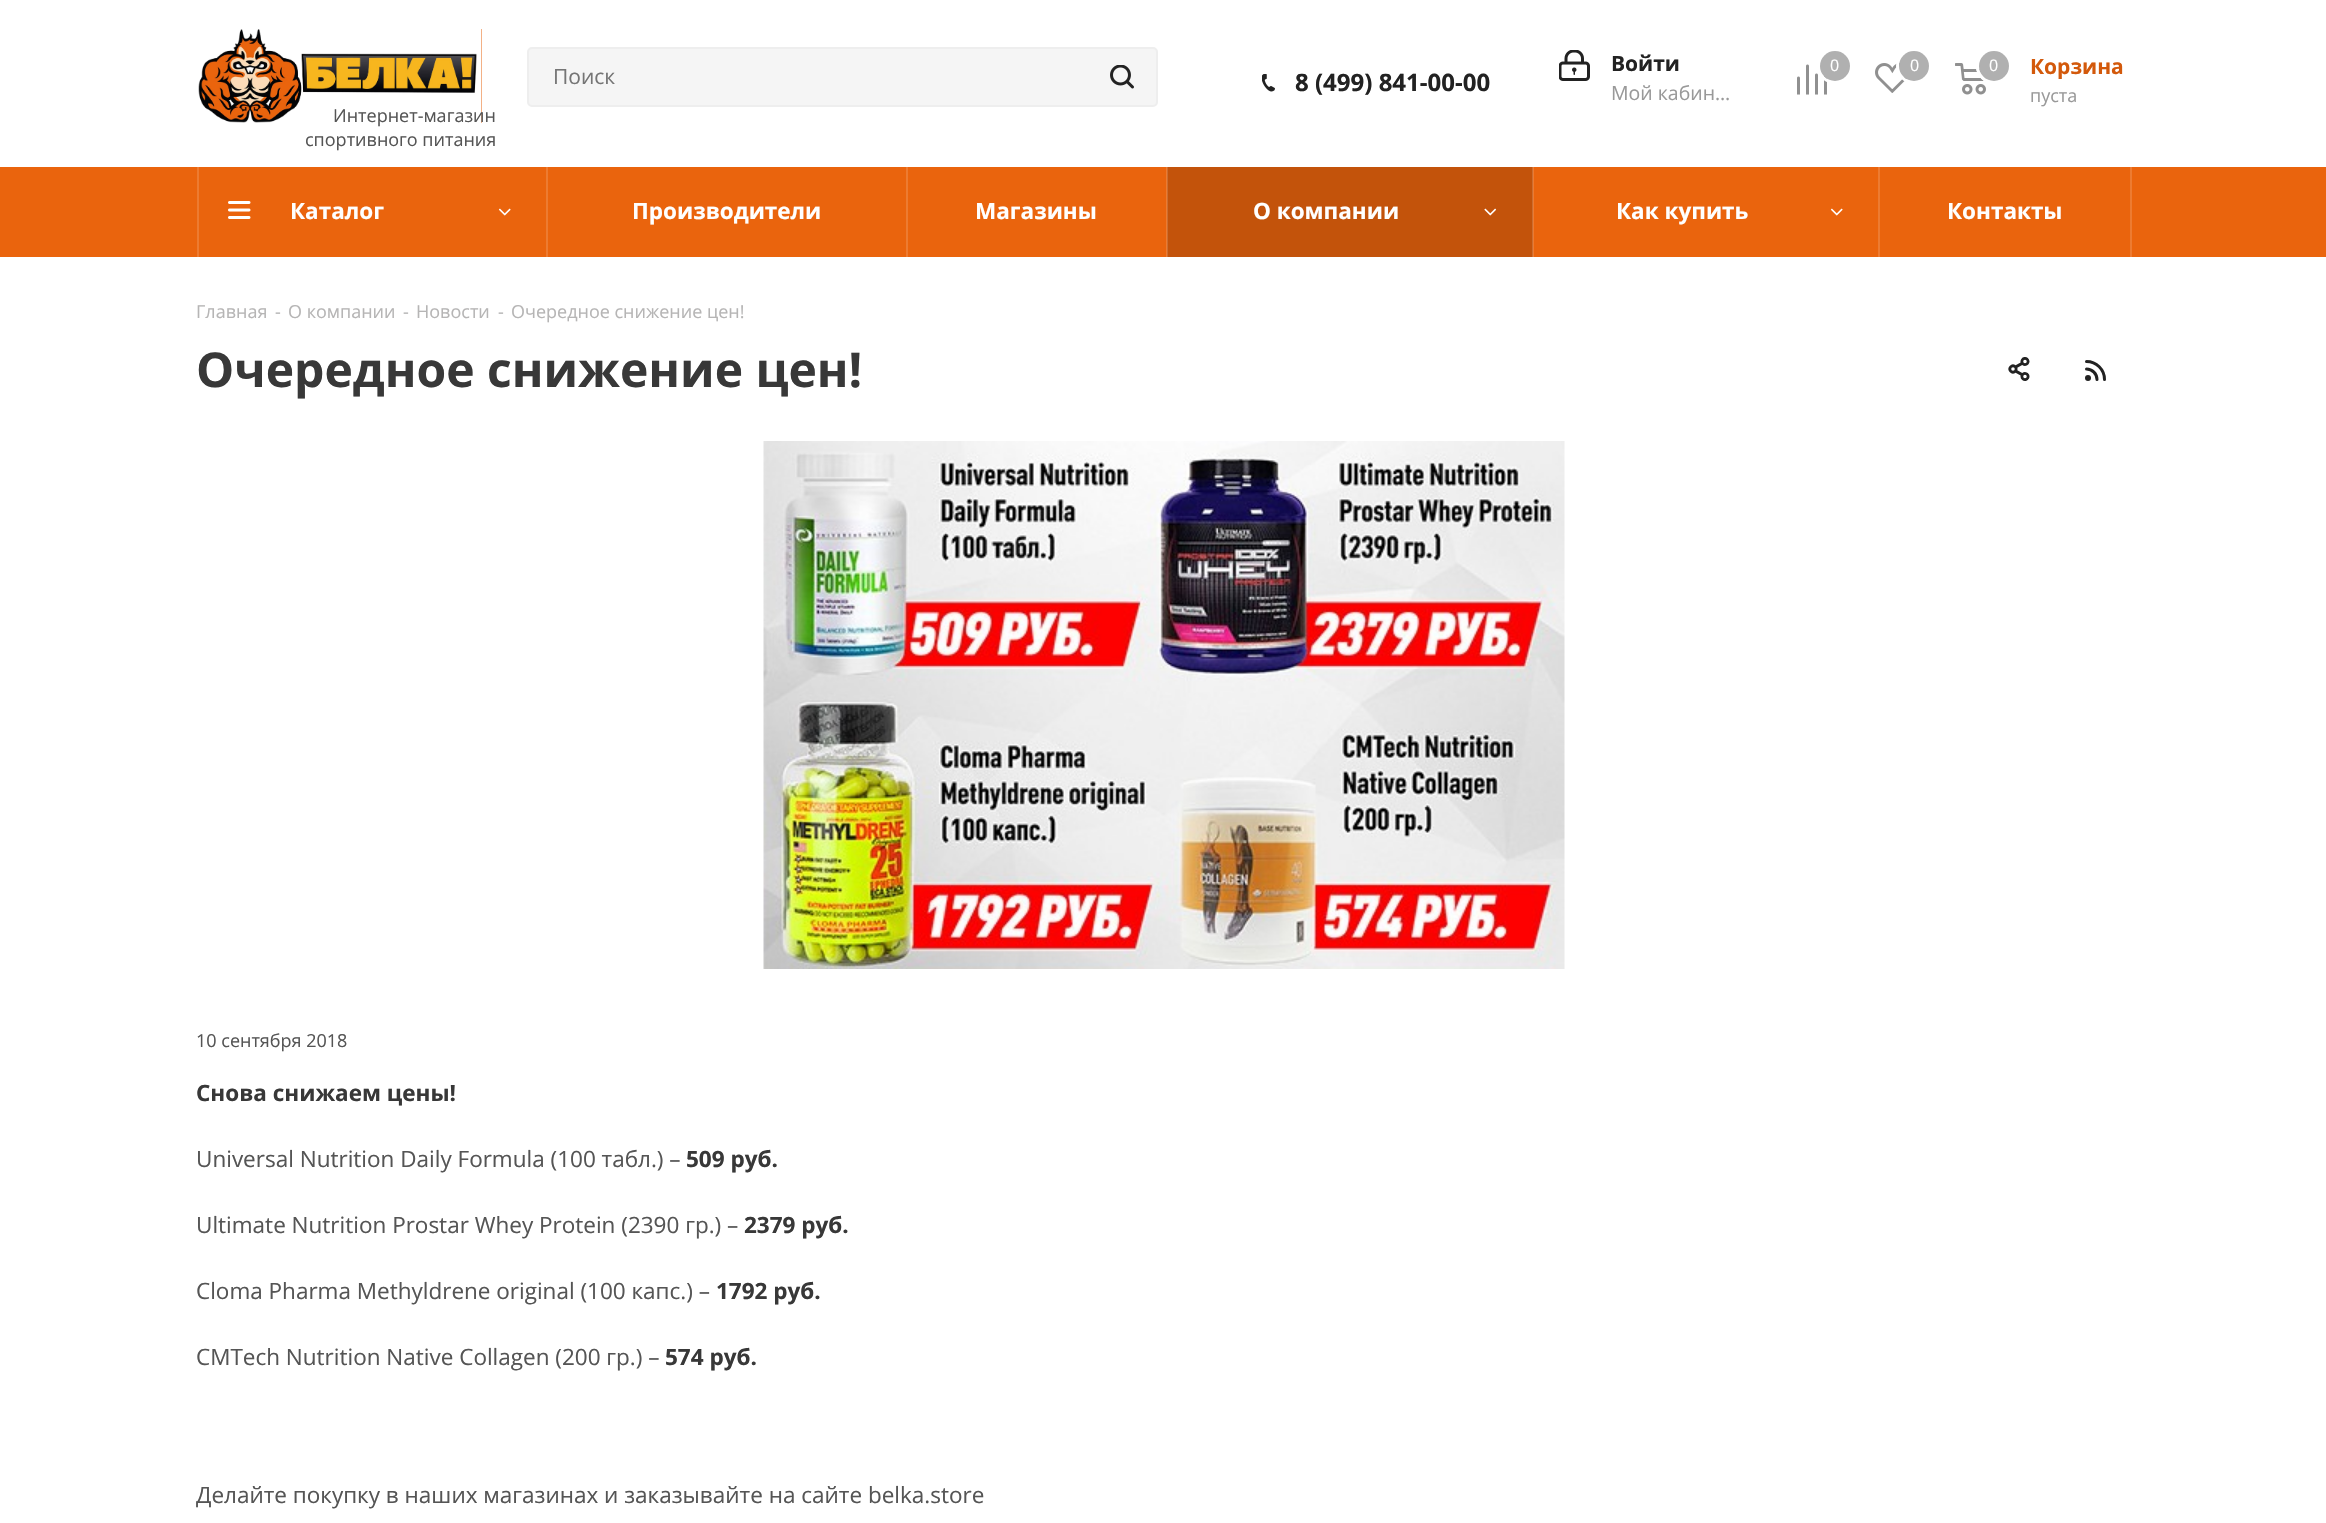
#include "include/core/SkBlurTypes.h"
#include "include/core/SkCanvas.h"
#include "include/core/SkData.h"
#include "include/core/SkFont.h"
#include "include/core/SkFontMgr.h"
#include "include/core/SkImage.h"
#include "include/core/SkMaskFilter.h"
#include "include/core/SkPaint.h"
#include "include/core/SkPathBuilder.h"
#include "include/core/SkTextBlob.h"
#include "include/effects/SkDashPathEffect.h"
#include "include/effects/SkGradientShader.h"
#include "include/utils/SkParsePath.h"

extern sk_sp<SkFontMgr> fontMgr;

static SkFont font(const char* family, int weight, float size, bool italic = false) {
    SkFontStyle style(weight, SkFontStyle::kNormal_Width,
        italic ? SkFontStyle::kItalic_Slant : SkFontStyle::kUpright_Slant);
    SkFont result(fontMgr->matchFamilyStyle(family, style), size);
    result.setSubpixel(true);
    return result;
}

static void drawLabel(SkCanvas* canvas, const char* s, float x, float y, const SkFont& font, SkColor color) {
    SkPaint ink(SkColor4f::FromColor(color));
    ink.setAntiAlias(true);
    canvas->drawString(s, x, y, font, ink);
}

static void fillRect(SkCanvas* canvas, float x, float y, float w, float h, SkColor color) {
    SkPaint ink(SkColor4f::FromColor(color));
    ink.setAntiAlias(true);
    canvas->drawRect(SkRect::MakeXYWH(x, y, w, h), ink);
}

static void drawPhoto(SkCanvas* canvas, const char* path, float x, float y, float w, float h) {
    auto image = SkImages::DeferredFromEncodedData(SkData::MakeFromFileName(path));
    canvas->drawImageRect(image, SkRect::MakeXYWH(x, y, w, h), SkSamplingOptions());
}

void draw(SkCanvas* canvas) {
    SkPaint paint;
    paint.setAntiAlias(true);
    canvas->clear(0xFFFFFFFF);
    paint.setColor(0xFFF5F5F5);
    canvas->drawRoundRect(SkRect::MakeXYWH(528, 48, 629, 58), 4, 4, paint);
    paint.setStroke(true);
    paint.setStrokeWidth(2);
    paint.setColor(0xFFEEEEEE);
    canvas->drawRoundRect(SkRect::MakeXYWH(528, 48, 629, 58), 4, 4, paint);
    SkFont font1 = font("Open Sans", 400, 21);
    drawLabel(canvas, "Поиск", 553, 84, font1, 0xFF757575);
    drawPhoto(canvas, "assets/img1.png", 1110, 65, 24, 24);
    drawPhoto(canvas, "assets/img2.png", 1262, 74, 13, 18);
    SkFont font2 = font("Open Sans", 700, 24);
    drawLabel(canvas, "8 (499) 841-00-00", 1295, 91, font2, 0xFF222222);
    drawPhoto(canvas, "assets/img3.png", 1559, 50, 31, 31);
    SkFont font3 = font("Open Sans", 700, 21);
    drawLabel(canvas, "Войти", 1611, 71, font3, 0xFF222222);
    SkFont font4 = font("Open Sans", 400, 19.5f);
    drawLabel(canvas, "Мой кабин…", 1611, 100, font4, 0xFF999999);
    drawPhoto(canvas, "assets/img4.png", 1797, 64, 30, 31);
    paint.setStrokeWidth(3);
    paint.setColor(0xFFFFFFFF);
    canvas->drawCircle(1835, 66, 16.5f, paint);
    paint.setStroke(false);
    paint.setColor(0xFFB0B0B0);
    canvas->drawCircle(1835, 66, 15, paint);
    SkFont font5 = font("Open Sans", 400, 16);
    drawLabel(canvas, "0", 1830, 71, font5, 0xFFFFFFFF);
    drawPhoto(canvas, "assets/img5.png", 1875, 63, 32, 30);
    paint.setStroke(true);
    paint.setColor(0xFFFFFFFF);
    canvas->drawCircle(1914, 66, 16.5f, paint);
    paint.setStroke(false);
    paint.setColor(0xFFB0B0B0);
    canvas->drawCircle(1914, 66, 15, paint);
    drawLabel(canvas, "0", 1910, 71, font5, 0xFFFFFFFF);
    drawPhoto(canvas, "assets/img6.png", 1955, 63, 32, 32);
    paint.setStroke(true);
    paint.setColor(0xFFFFFFFF);
    canvas->drawCircle(1994, 66, 16.5f, paint);
    canvas->drawCircle(1994, 66, 16.5f, paint);
    paint.setStroke(false);
    paint.setColor(0xFFB0B0B0);
    canvas->drawCircle(1994, 66, 15, paint);
    drawLabel(canvas, "0", 1989, 71, font5, 0xFFFFFFFF);
    drawLabel(canvas, "Корзина", 2030, 74, font3, 0xFFD3590B);
    SkFont font6 = font("Open Sans", 400, 18);
    drawLabel(canvas, "пуста", 2030, 102, font6, 0xFF999999);
    fillRect(canvas, 481, 29, 1, 94, 0xFFE6620C);
    drawPhoto(canvas, "assets/img7.png", 197, 29, 285, 94);
    drawLabel(canvas, "Интернет-магазин", 333, 122, font6, 0xFF555555);
    drawLabel(canvas, "спортивного питания", 305, 146, font6, 0xFF555555);
    fillRect(canvas, 0, 167, 2326, 90, 0xFFEA640D);
    fillRect(canvas, 1533, 167, 1, 90, 0xFFED7B31);
    fillRect(canvas, 1166, 167, 1, 90, 0xFFED7B31);
    fillRect(canvas, 197, 167, 2, 90, 0xFFED7B31);
    fillRect(canvas, 546, 167, 2, 90, 0xFFED7B31);
    drawPhoto(canvas, "assets/img8.png", 228, 201, 23, 18);
    SkFont font7 = font("Open Sans", 700, 22.5f);
    drawLabel(canvas, "Каталог", 290, 219, font7, 0xFFFFFFFF);
    drawPhoto(canvas, "assets/img9.png", 498, 208, 13, 8);
    fillRect(canvas, 906, 167, 2, 90, 0xFFED7B31);
    drawLabel(canvas, "Производители", 632, 219, font7, 0xFFFFFFFF);
    drawLabel(canvas, "Магазины", 975, 219, font7, 0xFFFFFFFF);
    fillRect(canvas, 1168, 167, 364, 90, 0xFFC3530B);
    fillRect(canvas, 1532, 167, 1, 90, 0xFFCC6D30);
    fillRect(canvas, 1167, 167, 1, 90, 0xFFCC6D30);
    drawLabel(canvas, "О компании", 1253, 219, font7, 0xFFFFFFFF);
    drawPhoto(canvas, "assets/img10.png", 1484, 208, 13, 8);
    fillRect(canvas, 1878, 167, 2, 90, 0xFFED7B31);
    drawLabel(canvas, "Как купить", 1616, 219, font7, 0xFFFFFFFF);
    drawPhoto(canvas, "assets/img9.png", 1830, 208, 13, 8);
    fillRect(canvas, 2130, 167, 2, 90, 0xFFED7B31);
    drawLabel(canvas, "Контакты", 1947, 219, font7, 0xFFFFFFFF);
    drawLabel(canvas, "Главная", 196, 318, font6, 0xFFB6B5B5);
    drawLabel(canvas, "-", 275, 318, font6, 0xFFB6B5B5);
    drawLabel(canvas, "О компании", 288, 318, font6, 0xFFB6B5B5);
    drawLabel(canvas, "-", 403, 318, font6, 0xFFB6B5B5);
    drawLabel(canvas, "Новости", 416, 318, font6, 0xFFB6B5B5);
    drawLabel(canvas, "-", 498, 318, font6, 0xFFB6B5B5);
    drawLabel(canvas, "Очередное снижение цен!", 511, 318, font6, 0xFFB6B5B5);
    SkFont font8 = font("Open Sans", 700, 48);
    drawLabel(canvas, "Очередное снижение цен!", 196, 387, font8, 0xFF383838);
    drawPhoto(canvas, "assets/img11.png", 2008, 357, 22, 24);
    drawPhoto(canvas, "assets/img12.png", 2085, 360, 21, 21);
    drawPhoto(canvas, "assets/img13.png", 763, 441, 802, 528);
    drawLabel(canvas, "10 сентября 2018", 196, 1047, font6, 0xFF555555);
    drawLabel(canvas, "Снова снижаем цены!", 196, 1101, font7, 0xFF383838);
    SkFont font9 = font("Open Sans", 400, 22.5f);
    drawLabel(canvas, "Universal Nutrition Daily Formula (100 табл.) –", 196, 1167, font9, 0xFF555555);
    drawLabel(canvas, "509 руб.", 686, 1167, font7, 0xFF383838);
    drawLabel(canvas, "Ultimate Nutrition Prostar Whey Protein (2390 гр.) –", 196, 1233, font9, 0xFF555555);
    drawLabel(canvas, "2379 руб.", 744, 1233, font7, 0xFF383838);
    drawLabel(canvas, "Cloma Pharma Methyldrene original (100 капс.) –", 196, 1299, font9, 0xFF555555);
    drawLabel(canvas, "1792 руб.", 716, 1299, font7, 0xFF383838);
    drawLabel(canvas, "CMTech Nutrition Native Collagen (200 гр.) –", 196, 1365, font9, 0xFF555555);
    drawLabel(canvas, "574 руб.", 665, 1365, font7, 0xFF383838);
    drawLabel(canvas, "Делайте покупку в наших магазинах и заказывайте на сайте belka.store", 196, 1503, font9, 0xFF555555);
}
